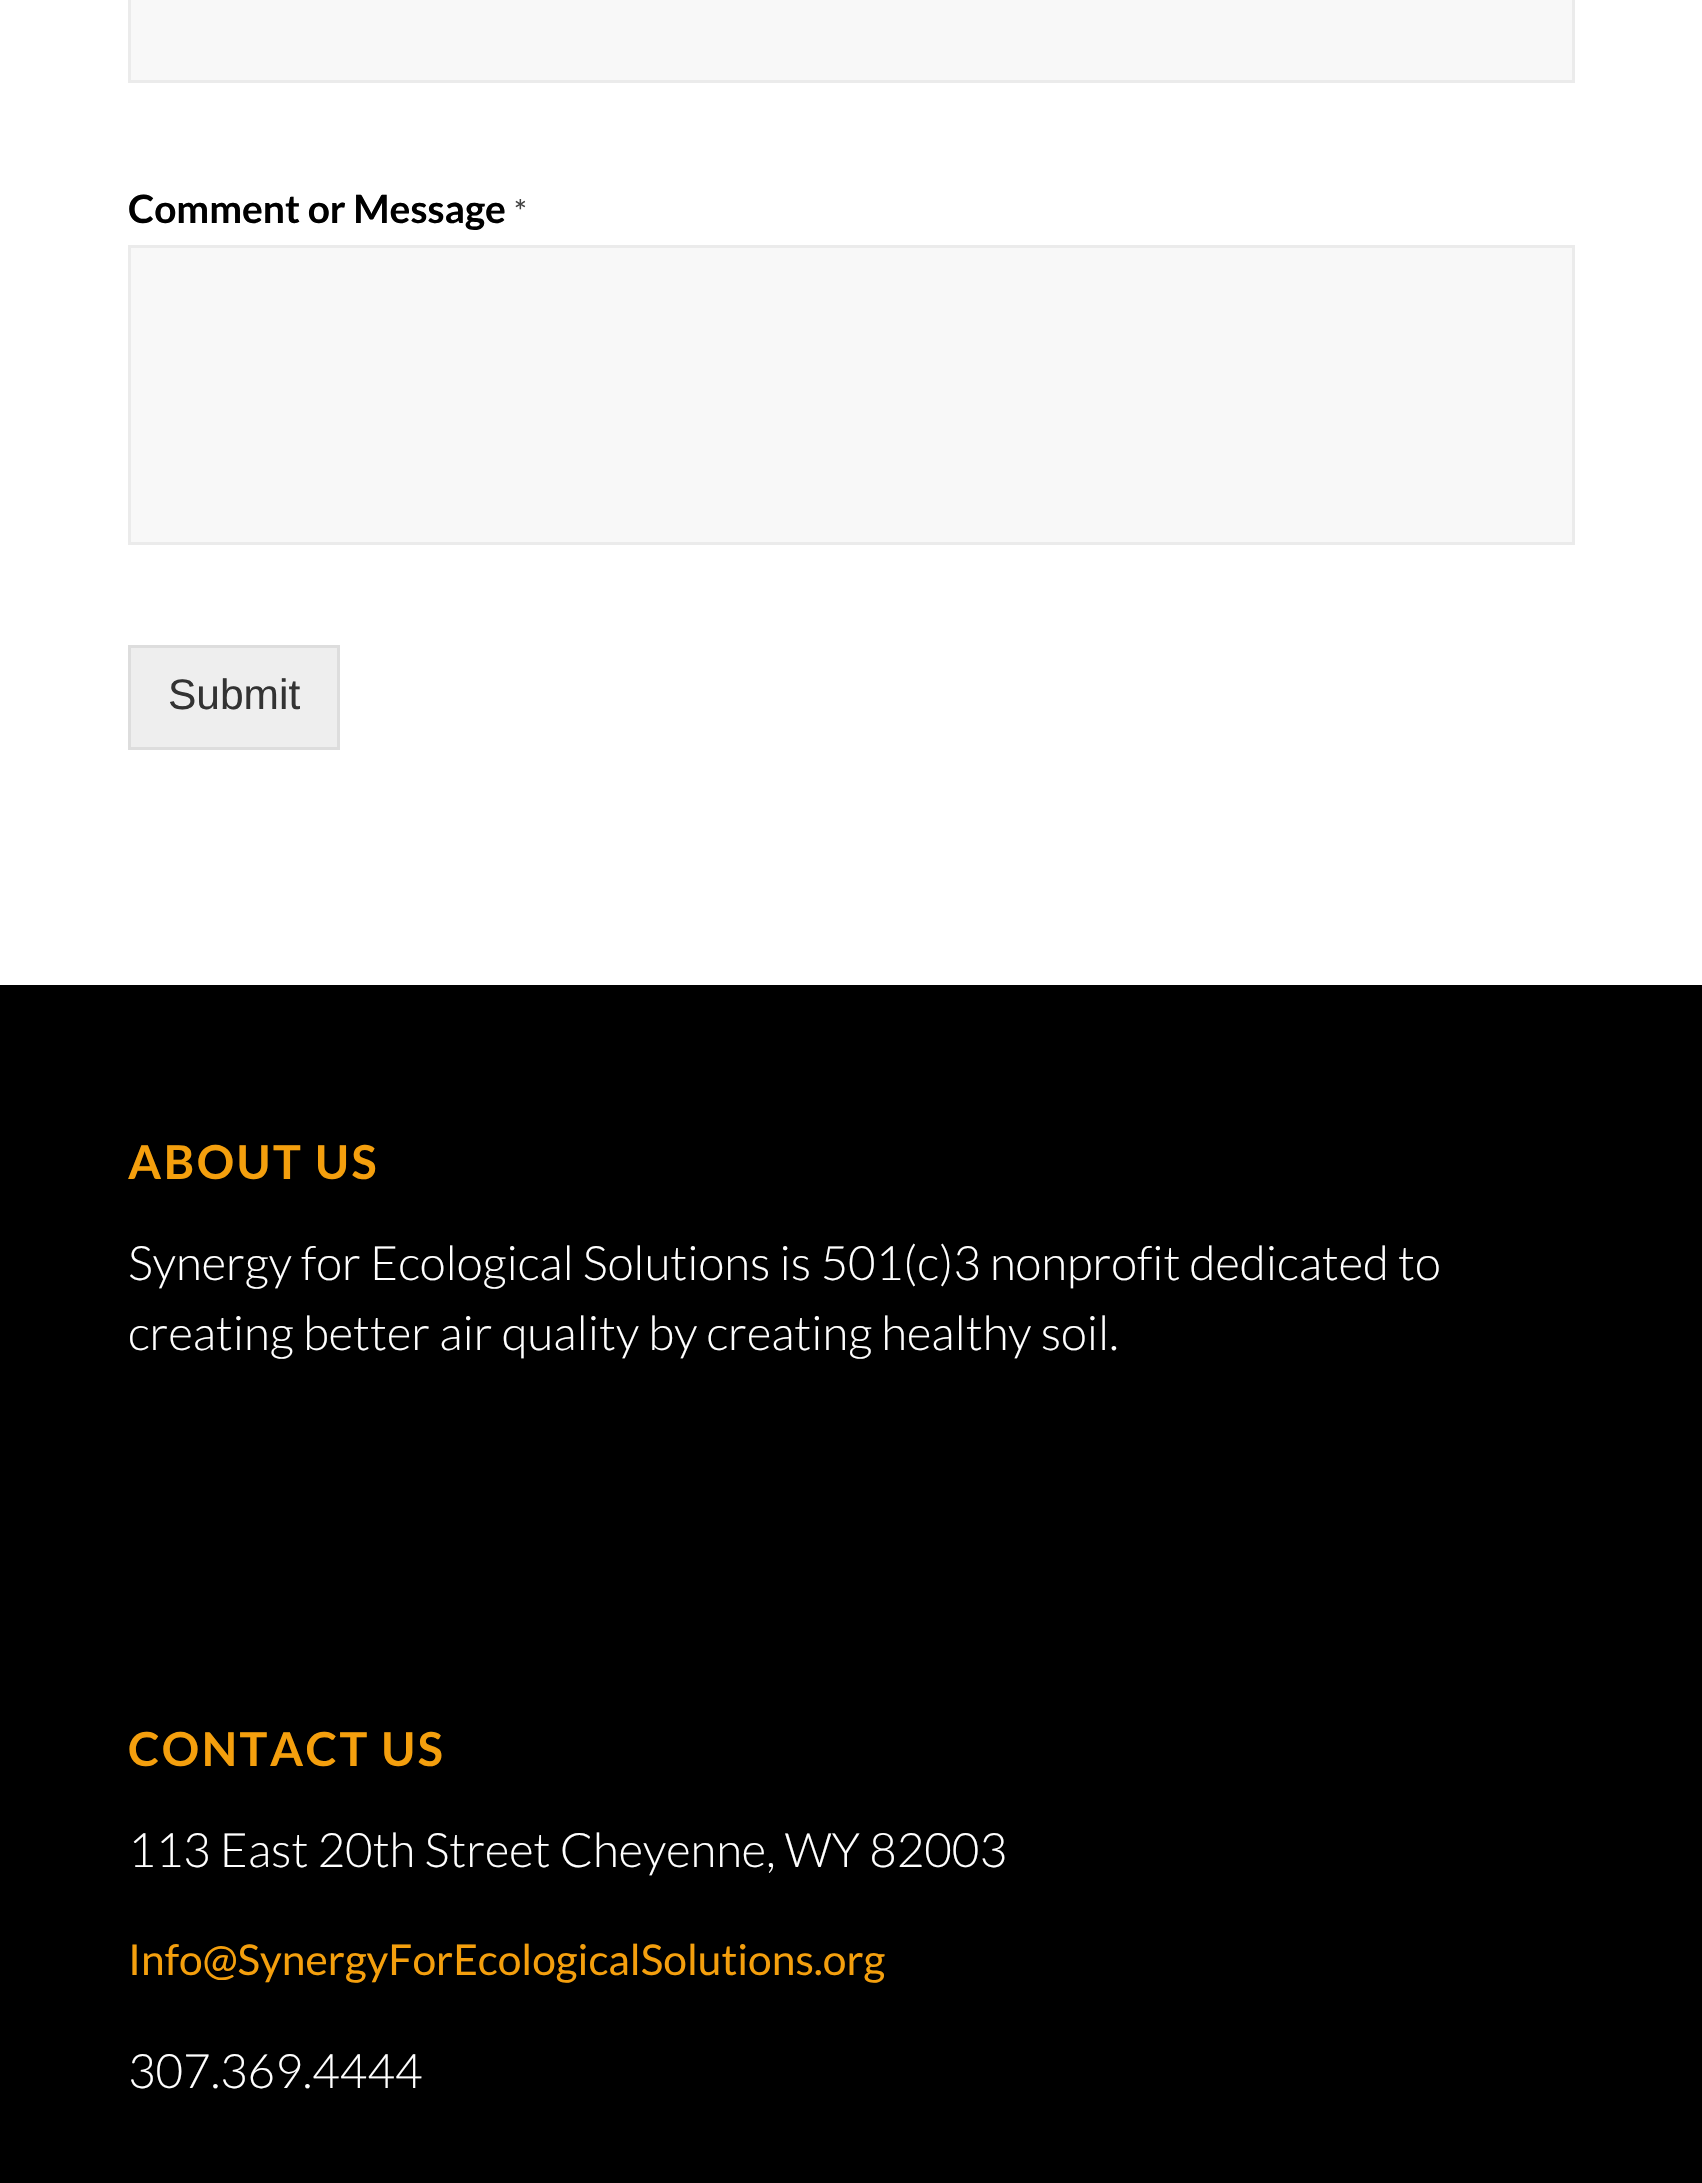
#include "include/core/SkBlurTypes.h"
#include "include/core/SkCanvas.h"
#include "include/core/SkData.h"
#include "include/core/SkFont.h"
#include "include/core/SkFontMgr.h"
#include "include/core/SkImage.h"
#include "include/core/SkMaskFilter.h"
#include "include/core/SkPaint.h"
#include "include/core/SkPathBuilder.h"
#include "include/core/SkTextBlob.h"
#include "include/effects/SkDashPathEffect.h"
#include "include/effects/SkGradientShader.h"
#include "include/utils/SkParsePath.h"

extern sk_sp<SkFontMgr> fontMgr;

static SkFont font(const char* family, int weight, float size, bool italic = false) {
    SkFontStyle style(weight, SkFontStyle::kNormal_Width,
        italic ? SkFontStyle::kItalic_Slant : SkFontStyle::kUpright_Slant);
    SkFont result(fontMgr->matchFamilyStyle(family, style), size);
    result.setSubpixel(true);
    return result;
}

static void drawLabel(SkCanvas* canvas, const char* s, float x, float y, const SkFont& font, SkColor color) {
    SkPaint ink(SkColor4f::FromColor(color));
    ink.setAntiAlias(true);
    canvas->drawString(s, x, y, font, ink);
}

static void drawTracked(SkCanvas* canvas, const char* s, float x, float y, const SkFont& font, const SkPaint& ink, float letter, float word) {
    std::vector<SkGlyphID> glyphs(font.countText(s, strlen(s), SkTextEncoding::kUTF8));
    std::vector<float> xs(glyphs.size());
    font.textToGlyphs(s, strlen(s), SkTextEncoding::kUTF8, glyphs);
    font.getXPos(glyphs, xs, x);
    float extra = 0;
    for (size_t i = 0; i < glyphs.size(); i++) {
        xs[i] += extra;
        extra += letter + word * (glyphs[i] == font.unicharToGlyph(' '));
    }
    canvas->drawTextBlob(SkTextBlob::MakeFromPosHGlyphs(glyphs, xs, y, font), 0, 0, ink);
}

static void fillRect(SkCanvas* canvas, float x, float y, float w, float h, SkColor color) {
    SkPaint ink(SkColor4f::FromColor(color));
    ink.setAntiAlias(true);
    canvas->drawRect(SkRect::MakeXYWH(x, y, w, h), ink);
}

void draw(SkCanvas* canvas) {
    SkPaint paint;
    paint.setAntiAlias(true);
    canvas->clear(0xFFFFFFFF);
    paint.setColor(0xFFF8F8F8);
    canvas->drawRect(SkRect::MakeXYWH(129.5f, -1.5f, 1444, 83), paint);
    paint.setStroke(true);
    paint.setStrokeWidth(3);
    paint.setColor(0xFFEBEBEB);
    canvas->drawRect(SkRect::MakeXYWH(129.5f, -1.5f, 1444, 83), paint);
    SkFont font1 = font("Lato", 700, 39);
    drawLabel(canvas, "Comment or Message", 128, 223, font1, 0xFF000000);
    SkFont font2 = font("Lato", 400, 32);
    drawLabel(canvas, "*", 514, 223, font2, 0xFF444444);
    paint.setStroke(false);
    paint.setColor(0xFFF8F8F8);
    canvas->drawRect(SkRect::MakeXYWH(129.5f, 246.5f, 1444, 297), paint);
    paint.setStroke(true);
    paint.setColor(0xFFEBEBEB);
    canvas->drawRect(SkRect::MakeXYWH(129.5f, 246.5f, 1444, 297), paint);
    paint.setStroke(false);
    paint.setColor(0xFFEEEEEE);
    canvas->drawRect(SkRect::MakeXYWH(129.5f, 646.5f, 209, 102), paint);
    paint.setStroke(true);
    paint.setColor(0xFFDDDDDD);
    canvas->drawRect(SkRect::MakeXYWH(129.5f, 646.5f, 209, 102), paint);
    SkFont font3 = font("Liberation Sans", 400, 42.5f);
    drawLabel(canvas, "Submit", 168, 709, font3, 0xFF333333);
    fillRect(canvas, 0, 985, 1702, 1198, 0xFF000000);
    SkFont font4 = font("Lato", 700, 46.75f);
    paint.setStroke(false);
    paint.setColor(0xFFF49F0D);
    drawTracked(canvas, "ABOUT US", 128, 1179, font4, paint, 2.5f, 0);
    SkFont font5 = font("Lato", 300, 47.5f);
    drawLabel(canvas, "Synergy for Ecological Solutions is 501(c)3 nonprofit dedicated to", 128, 1280, font5, 0xFFFFFFFF);
    drawLabel(canvas, "creating better air quality by creating healthy soil.", 128, 1350, font5, 0xFFFFFFFF);
    drawTracked(canvas, "CONTACT US", 128, 1766, font4, paint, 2.5f, 0);
    drawLabel(canvas, "113 East 20th Street Cheyenne, WY 82003", 128, 1867, font5, 0xFFFFFFFF);
    SkFont font6 = font("Lato", 400, 42.5f);
    drawLabel(canvas, "Info@SynergyForEcologicalSolutions.org", 128, 1975, font6, 0xFFF49F0D);
    drawLabel(canvas, "307.369.4444", 128, 2088, font5, 0xFFFFFFFF);
}
